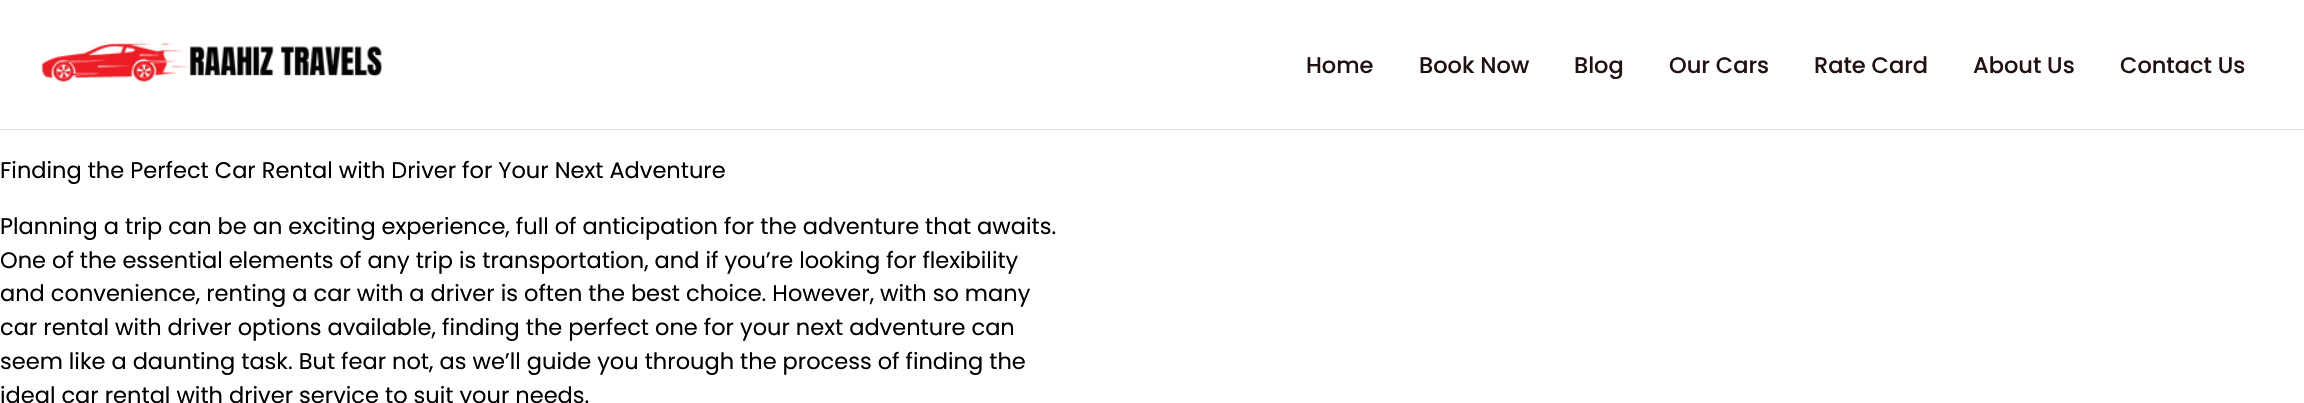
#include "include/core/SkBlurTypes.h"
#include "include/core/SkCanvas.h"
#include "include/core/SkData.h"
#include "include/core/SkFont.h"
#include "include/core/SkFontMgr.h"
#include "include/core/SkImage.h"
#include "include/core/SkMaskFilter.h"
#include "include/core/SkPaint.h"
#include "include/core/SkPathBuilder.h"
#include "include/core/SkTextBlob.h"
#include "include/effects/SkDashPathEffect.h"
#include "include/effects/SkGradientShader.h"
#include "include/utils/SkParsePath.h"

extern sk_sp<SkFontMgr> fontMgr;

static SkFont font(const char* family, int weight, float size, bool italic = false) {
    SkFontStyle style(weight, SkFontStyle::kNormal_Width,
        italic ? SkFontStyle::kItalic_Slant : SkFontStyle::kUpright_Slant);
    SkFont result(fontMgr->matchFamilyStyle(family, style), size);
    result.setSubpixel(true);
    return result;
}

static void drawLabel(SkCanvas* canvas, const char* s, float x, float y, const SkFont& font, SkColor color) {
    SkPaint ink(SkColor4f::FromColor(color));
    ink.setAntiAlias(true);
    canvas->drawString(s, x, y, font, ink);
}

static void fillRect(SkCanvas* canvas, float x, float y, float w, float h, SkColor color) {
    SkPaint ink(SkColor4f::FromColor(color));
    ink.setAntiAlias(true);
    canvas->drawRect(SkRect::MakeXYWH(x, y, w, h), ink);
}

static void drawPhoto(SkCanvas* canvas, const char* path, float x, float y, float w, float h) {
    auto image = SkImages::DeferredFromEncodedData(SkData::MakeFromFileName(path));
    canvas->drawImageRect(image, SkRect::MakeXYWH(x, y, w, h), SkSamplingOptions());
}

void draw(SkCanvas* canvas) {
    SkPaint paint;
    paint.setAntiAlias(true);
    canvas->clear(0xFFFFFFFF);
    fillRect(canvas, 0, 129, 2304, 1, 0xFFD9D9D9);
    drawPhoto(canvas, "assets/img1.png", 41, 42, 342, 41);
    SkFont font1 = font("Poppins", 500, 22.5f);
    drawLabel(canvas, "Home", 1306, 73, font1, 0xFF231010);
    drawLabel(canvas, "Book Now", 1419, 73, font1, 0xFF231010);
    drawLabel(canvas, "Blog", 1574, 73, font1, 0xFF231010);
    drawLabel(canvas, "Our Cars", 1669, 73, font1, 0xFF231010);
    drawLabel(canvas, "Rate Card", 1814, 73, font1, 0xFF231010);
    drawLabel(canvas, "About Us", 1973, 73, font1, 0xFF231010);
    drawLabel(canvas, "Contact Us", 2120, 73, font1, 0xFF231010);
    SkFont font2 = font("Poppins", 400, 22.5f);
    drawLabel(canvas, "Finding the Perfect Car Rental with Driver for Your Next Adventure", 0, 178, font2, 0xFF000000);
    drawLabel(canvas, "Planning a trip can be an exciting experience, full of anticipation for the adventure that awaits.", 0, 234, font2, 0xFF000000);
    drawLabel(canvas, "One of the essential elements of any trip is transportation, and if you’re looking for flexibility", 0, 268, font2, 0xFF000000);
    drawLabel(canvas, "and convenience, renting a car with a driver is often the best choice. However, with so many", 0, 301, font2, 0xFF000000);
    drawLabel(canvas, "car rental with driver options available, finding the perfect one for your next adventure can", 0, 335, font2, 0xFF000000);
    drawLabel(canvas, "seem like a daunting task. But fear not, as we’ll guide you through the process of finding the", 0, 369, font2, 0xFF000000);
    drawLabel(canvas, "ideal car rental with driver service to suit your needs.", 0, 403, font2, 0xFF000000);
}
